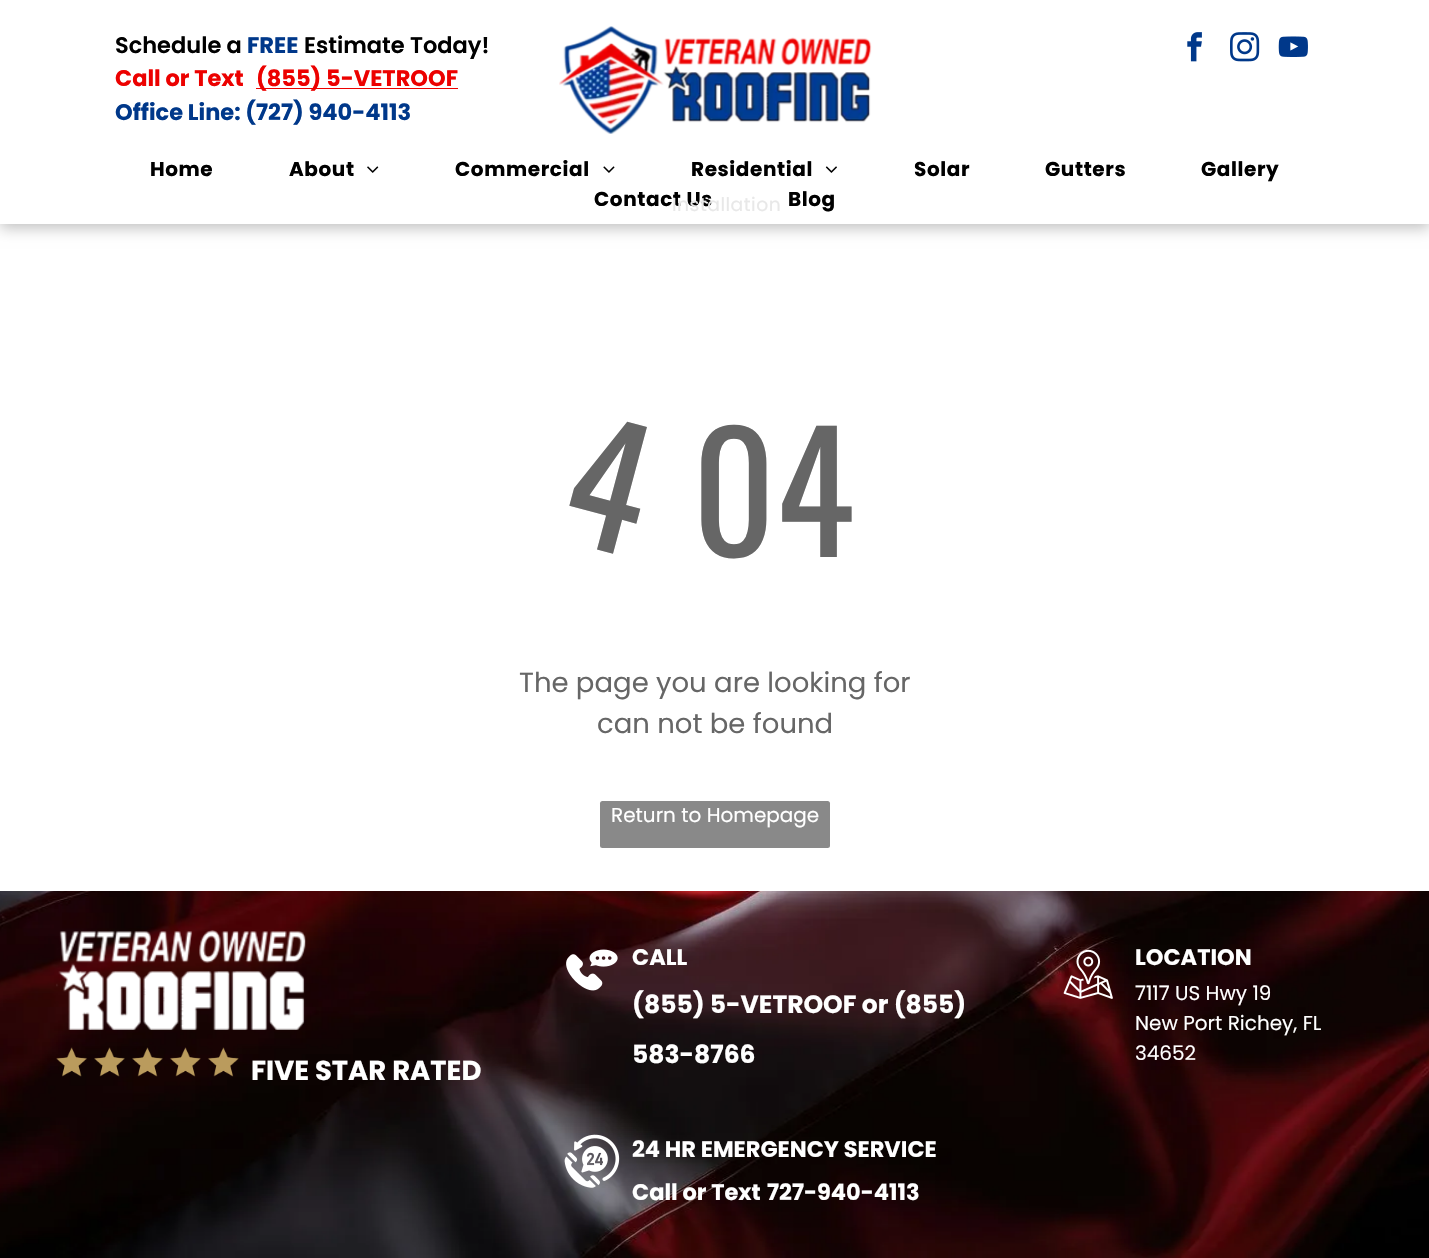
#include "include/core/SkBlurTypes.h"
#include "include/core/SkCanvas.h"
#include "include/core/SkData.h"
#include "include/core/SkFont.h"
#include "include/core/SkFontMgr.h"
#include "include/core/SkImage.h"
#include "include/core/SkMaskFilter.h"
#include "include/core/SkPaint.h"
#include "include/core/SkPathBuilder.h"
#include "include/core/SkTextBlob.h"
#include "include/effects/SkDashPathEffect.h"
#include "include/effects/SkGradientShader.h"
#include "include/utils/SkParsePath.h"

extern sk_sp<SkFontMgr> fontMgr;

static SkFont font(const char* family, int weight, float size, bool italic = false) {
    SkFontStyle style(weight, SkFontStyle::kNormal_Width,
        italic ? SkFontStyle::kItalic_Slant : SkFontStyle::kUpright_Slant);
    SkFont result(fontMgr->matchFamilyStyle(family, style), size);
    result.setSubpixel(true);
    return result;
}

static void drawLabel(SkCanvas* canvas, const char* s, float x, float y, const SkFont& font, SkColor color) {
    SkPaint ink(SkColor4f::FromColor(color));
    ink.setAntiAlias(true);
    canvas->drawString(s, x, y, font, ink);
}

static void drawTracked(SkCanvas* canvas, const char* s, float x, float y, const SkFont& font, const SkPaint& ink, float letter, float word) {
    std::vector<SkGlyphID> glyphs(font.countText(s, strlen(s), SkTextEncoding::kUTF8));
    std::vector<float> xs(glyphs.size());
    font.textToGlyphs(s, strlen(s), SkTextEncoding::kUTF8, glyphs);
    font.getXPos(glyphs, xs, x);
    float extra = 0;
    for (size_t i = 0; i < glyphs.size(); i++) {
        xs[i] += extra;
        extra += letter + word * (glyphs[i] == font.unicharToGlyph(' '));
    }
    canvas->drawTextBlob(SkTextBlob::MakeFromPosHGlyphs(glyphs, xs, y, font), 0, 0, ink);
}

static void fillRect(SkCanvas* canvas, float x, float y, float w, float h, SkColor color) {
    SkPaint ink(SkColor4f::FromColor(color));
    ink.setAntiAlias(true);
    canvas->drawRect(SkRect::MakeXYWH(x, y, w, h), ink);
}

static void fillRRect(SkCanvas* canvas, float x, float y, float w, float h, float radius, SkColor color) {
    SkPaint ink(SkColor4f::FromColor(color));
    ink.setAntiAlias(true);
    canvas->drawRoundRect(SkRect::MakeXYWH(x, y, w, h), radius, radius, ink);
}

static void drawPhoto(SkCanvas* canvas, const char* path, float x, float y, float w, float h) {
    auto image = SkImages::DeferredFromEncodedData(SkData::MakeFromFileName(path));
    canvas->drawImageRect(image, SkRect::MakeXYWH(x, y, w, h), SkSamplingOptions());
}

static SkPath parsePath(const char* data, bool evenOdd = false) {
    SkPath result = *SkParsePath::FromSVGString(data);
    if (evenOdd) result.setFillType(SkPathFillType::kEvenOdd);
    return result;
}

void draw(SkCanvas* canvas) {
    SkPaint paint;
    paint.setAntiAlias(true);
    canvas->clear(0xFFFFFFFF);
    canvas->save();
    canvas->clipPath(parsePath("M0 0H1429V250H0ZM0 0H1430V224H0Z", true), true);
    paint.setColor(0x40000000);
    paint.setMaskFilter(SkMaskFilter::MakeBlur(kNormal_SkBlurStyle, 7));
    canvas->drawRect(SkRect::MakeXYWH(0, 4, 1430, 224), paint);
    paint.setMaskFilter(nullptr);
    canvas->restore();
    fillRect(canvas, 0, 223, 1429, 1, 0xA6FFFFFF);
    SkFont font1 = font("Poppins", 600, 22.5f);
    drawLabel(canvas, "Schedule a", 115, 53, font1, 0xFF000000);
    SkFont font2 = font("Poppins", 700, 22.5f);
    drawLabel(canvas, "FREE", 247, 53, font2, 0xFF00388A);
    drawLabel(canvas, "Estimate Today!", 304, 53, font1, 0xFF000000);
    drawLabel(canvas, "Call or Text", 115, 86, font2, 0xFFEC0100);
    fillRect(canvas, 256, 88, 202, 1, 0xFFEC0100);
    drawLabel(canvas, "(855) 5-VETROOF", 256, 86, font2, 0xFFEC0100);
    drawLabel(canvas, "Office Line: (727) 940-4113", 115, 120, font2, 0xFF00388A);
    drawPhoto(canvas, "assets/img1.png", 559, 26, 313, 108);
    drawPhoto(canvas, "assets/img2.png", 1187, 32, 15, 30);
    drawPhoto(canvas, "assets/img3.png", 1230, 32, 30, 30);
    drawPhoto(canvas, "assets/img4.png", 1278, 36, 30, 21);
    SkFont font3 = font("Poppins", 700, 20);
    paint.setColor(0xFF000000);
    drawTracked(canvas, "Home", 150, 176, font3, paint, 0.6f, 0);
    drawTracked(canvas, "About", 289, 176, font3, paint, 0.6f, 0);
    drawPhoto(canvas, "assets/img5.png", 367, 166, 12, 7);
    drawTracked(canvas, "Commercial", 455, 176, font3, paint, 0.6f, 0);
    drawPhoto(canvas, "assets/img6.png", 603, 166, 12, 7);
    drawTracked(canvas, "Residential", 691, 176, font3, paint, 0.6f, 0);
    drawPhoto(canvas, "assets/img7.png", 825, 166, 12, 7);
    drawTracked(canvas, "Contact Us", 594, 206, font3, paint, 0.6f, 0);
    SkFont font4 = font("Poppins", 400, 18.75f);
    paint.setColor(0xFFE8E8E8);
    drawTracked(canvas, "Installation", 672, 211, font4, paint, 0.5f, 0);
    paint.setColor(0xFF000000);
    drawTracked(canvas, "Solar", 914, 176, font3, paint, 0.6f, 0);
    drawTracked(canvas, "Gutters", 1045, 176, font3, paint, 0.6f, 0);
    drawTracked(canvas, "Gallery", 1201, 176, font3, paint, 0.6f, 0);
    drawTracked(canvas, "Blog", 788, 206, font3, paint, 0.6f, 0);
    SkFont font5 = font("Oswald", 400, 162);
    canvas->save();
    canvas->rotate(15, 554, 538);
    drawLabel(canvas, "4", 554, 538, font5, 0xFF666666);
    canvas->restore();
    drawLabel(canvas, "04", 692, 557, font5, 0xFF666666);
    SkFont font6 = font("Poppins", 400, 27.5f);
    drawLabel(canvas, "The page you are looking for", 519, 692, font6, 0xFF666666);
    drawLabel(canvas, "can not be found", 597, 733, font6, 0xFF666666);
    fillRRect(canvas, 600, 801, 230, 47, 2.5f, 0xFF898989);
    SkFont font7 = font("Poppins", 400, 20);
    drawLabel(canvas, "Return to Homepage", 611, 822, font7, 0xFFFFFFFF);
    drawPhoto(canvas, "assets/img8.png", 0, 891, 1429, 367);
    drawPhoto(canvas, "assets/img9.png", 566, 949, 52, 42);
    drawLabel(canvas, "CALL", 632, 965, font2, 0xFFFFFFFF);
    SkFont font8 = font("Poppins", 700, 25);
    drawLabel(canvas, "(855) 5-VETROOF or (855)", 632, 1013, font8, 0xFFFFFFFF);
    drawLabel(canvas, "583-8766", 632, 1063, font8, 0xFFFFFFFF);
    drawPhoto(canvas, "assets/img10.png", 564, 1134, 56, 54);
    drawLabel(canvas, "24 HR EMERGENCY SERVICE", 632, 1157, font2, 0xFFFFFFFF);
    drawLabel(canvas, "Call or Text", 632, 1200, font2, 0xFFFFFFFF);
    drawLabel(canvas, "727-940-4113", 767, 1200, font2, 0xFFFFFFFF);
    drawPhoto(canvas, "assets/img11.png", 1063, 949, 50, 50);
    drawLabel(canvas, "LOCATION", 1135, 965, font2, 0xFFFFFFFF);
    drawLabel(canvas, "7117 US Hwy 19", 1135, 1000, font7, 0xFFFFFFFF);
    drawLabel(canvas, "New Port Richey, FL", 1135, 1030, font7, 0xFFFFFFFF);
    drawLabel(canvas, "34652", 1135, 1060, font7, 0xFFFFFFFF);
    drawPhoto(canvas, "assets/img12.png", 56, 930, 250, 100);
    drawPhoto(canvas, "assets/img13.png", 56, 1047, 183, 30);
    SkFont font9 = font("Poppins", 700, 27.5f);
    drawLabel(canvas, "FIVE STAR RATED", 251, 1080, font9, 0xFFFFFFFF);
}
